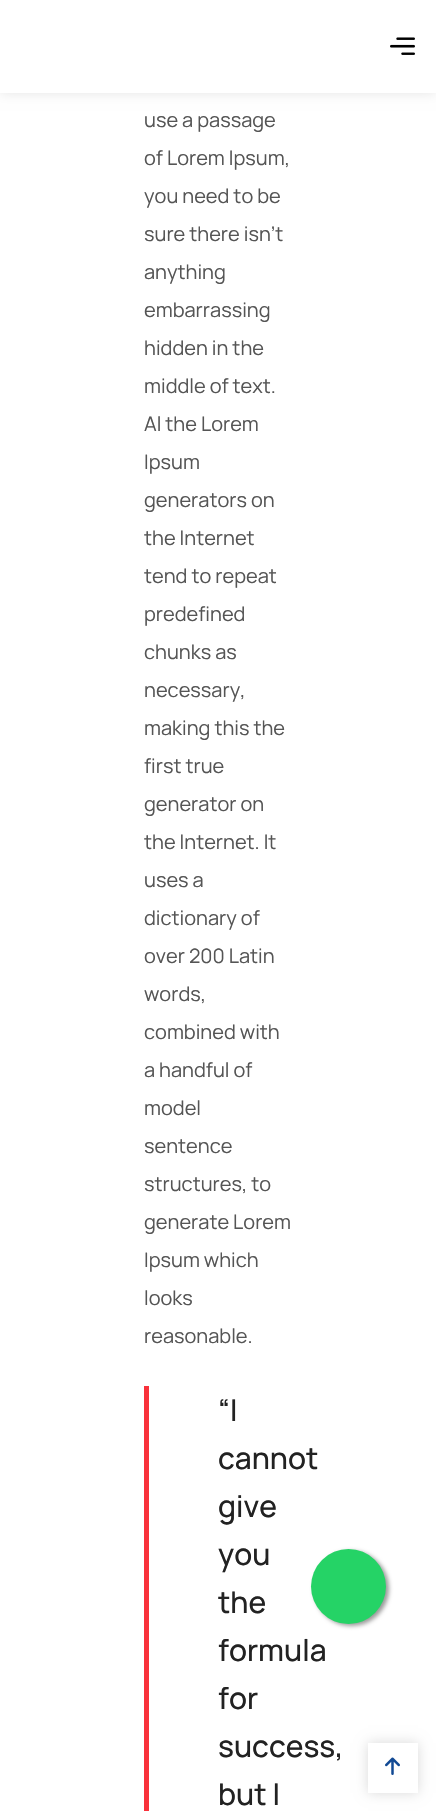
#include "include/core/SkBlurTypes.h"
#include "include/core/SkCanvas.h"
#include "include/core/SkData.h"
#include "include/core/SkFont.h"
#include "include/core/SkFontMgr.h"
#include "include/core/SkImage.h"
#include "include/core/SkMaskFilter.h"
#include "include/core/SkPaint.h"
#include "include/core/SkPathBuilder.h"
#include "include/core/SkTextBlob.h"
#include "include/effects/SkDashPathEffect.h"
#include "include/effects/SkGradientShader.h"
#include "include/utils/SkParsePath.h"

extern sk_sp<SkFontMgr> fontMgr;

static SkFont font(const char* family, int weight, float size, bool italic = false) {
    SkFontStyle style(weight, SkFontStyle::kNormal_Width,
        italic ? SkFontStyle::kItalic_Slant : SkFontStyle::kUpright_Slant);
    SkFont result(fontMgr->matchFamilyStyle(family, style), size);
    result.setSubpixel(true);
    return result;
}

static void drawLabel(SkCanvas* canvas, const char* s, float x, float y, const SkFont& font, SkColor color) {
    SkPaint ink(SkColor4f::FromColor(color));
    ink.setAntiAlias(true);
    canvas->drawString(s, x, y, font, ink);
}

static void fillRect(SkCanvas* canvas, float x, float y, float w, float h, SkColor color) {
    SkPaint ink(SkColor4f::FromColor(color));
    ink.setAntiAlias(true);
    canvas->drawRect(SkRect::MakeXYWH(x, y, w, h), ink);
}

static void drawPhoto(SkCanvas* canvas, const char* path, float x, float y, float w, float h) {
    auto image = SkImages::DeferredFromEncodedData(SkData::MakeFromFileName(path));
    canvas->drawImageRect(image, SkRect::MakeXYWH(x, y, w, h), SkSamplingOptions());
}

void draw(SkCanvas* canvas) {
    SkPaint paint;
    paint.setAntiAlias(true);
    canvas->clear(0xFFFFFFFF);
    paint.setColor(0x1A000000);
    paint.setMaskFilter(SkMaskFilter::MakeBlur(kNormal_SkBlurStyle, 6));
    canvas->drawRect(SkRect::MakeXYWH(0, 0, 436, 93), paint);
    paint.setMaskFilter(nullptr);
    fillRect(canvas, 0, 0, 436, 93, 0xFFFFFFFF);
    drawPhoto(canvas, "assets/img1.png", 390, 37, 25, 18);
    SkFont font1 = font("Manrope", 400, 20);
    drawLabel(canvas, "use a passage", 144, 127, font1, 0xFF555555);
    drawLabel(canvas, "of Lorem Ipsum,", 144, 165, font1, 0xFF555555);
    drawLabel(canvas, "you need to be", 144, 203, font1, 0xFF555555);
    drawLabel(canvas, "sure there isn’t", 144, 241, font1, 0xFF555555);
    drawLabel(canvas, "anything", 144, 279, font1, 0xFF555555);
    drawLabel(canvas, "embarrassing", 144, 317, font1, 0xFF555555);
    drawLabel(canvas, "hidden in the", 144, 355, font1, 0xFF555555);
    drawLabel(canvas, "middle of text.", 144, 393, font1, 0xFF555555);
    drawLabel(canvas, "Al the Lorem", 144, 431, font1, 0xFF555555);
    drawLabel(canvas, "Ipsum", 144, 469, font1, 0xFF555555);
    drawLabel(canvas, "generators on", 144, 507, font1, 0xFF555555);
    drawLabel(canvas, "the Internet", 144, 545, font1, 0xFF555555);
    drawLabel(canvas, "tend to repeat", 144, 583, font1, 0xFF555555);
    drawLabel(canvas, "predefined", 144, 621, font1, 0xFF555555);
    drawLabel(canvas, "chunks as", 144, 659, font1, 0xFF555555);
    drawLabel(canvas, "necessary,", 144, 697, font1, 0xFF555555);
    drawLabel(canvas, "making this the", 144, 735, font1, 0xFF555555);
    drawLabel(canvas, "first true", 144, 773, font1, 0xFF555555);
    drawLabel(canvas, "generator on", 144, 811, font1, 0xFF555555);
    drawLabel(canvas, "the Internet. It", 144, 849, font1, 0xFF555555);
    drawLabel(canvas, "uses a", 144, 887, font1, 0xFF555555);
    drawLabel(canvas, "dictionary of", 144, 925, font1, 0xFF555555);
    drawLabel(canvas, "over 200 Latin", 144, 963, font1, 0xFF555555);
    drawLabel(canvas, "words,", 144, 1001, font1, 0xFF555555);
    drawLabel(canvas, "combined with", 144, 1039, font1, 0xFF555555);
    drawLabel(canvas, "a handful of", 144, 1077, font1, 0xFF555555);
    drawLabel(canvas, "model", 144, 1115, font1, 0xFF555555);
    drawLabel(canvas, "sentence", 144, 1153, font1, 0xFF555555);
    drawLabel(canvas, "structures, to", 144, 1191, font1, 0xFF555555);
    drawLabel(canvas, "generate Lorem", 144, 1229, font1, 0xFF555555);
    drawLabel(canvas, "Ipsum which", 144, 1267, font1, 0xFF555555);
    drawLabel(canvas, "looks", 144, 1305, font1, 0xFF555555);
    drawLabel(canvas, "reasonable.", 144, 1343, font1, 0xFF555555);
    fillRect(canvas, 144, 1386, 5, 425, 0xFFF9313B);
    SkFont font2 = font("Manrope", 500, 30);
    drawLabel(canvas, "“I", 218, 1421, font2, 0xFF222222);
    drawLabel(canvas, "cannot", 218, 1469, font2, 0xFF222222);
    drawLabel(canvas, "give", 218, 1517, font2, 0xFF222222);
    drawLabel(canvas, "you", 218, 1565, font2, 0xFF222222);
    drawLabel(canvas, "the", 218, 1613, font2, 0xFF222222);
    drawLabel(canvas, "formula", 218, 1661, font2, 0xFF222222);
    drawLabel(canvas, "for", 218, 1709, font2, 0xFF222222);
    drawLabel(canvas, "success,", 218, 1757, font2, 0xFF222222);
    drawLabel(canvas, "but I", 218, 1805, font2, 0xFF222222);
    paint.setColor(0x26000000);
    paint.setMaskFilter(SkMaskFilter::MakeBlur(kNormal_SkBlurStyle, 6));
    canvas->drawRect(SkRect::MakeXYWH(368, 1743, 50, 50), paint);
    paint.setMaskFilter(nullptr);
    fillRect(canvas, 368, 1743, 50, 50, 0xFFFFFFFF);
    drawPhoto(canvas, "assets/img2.png", 385, 1757, 15, 18);
    paint.setColor(0xFF999999);
    paint.setMaskFilter(SkMaskFilter::MakeBlur(kNormal_SkBlurStyle, 2));
    canvas->drawRoundRect(SkRect::MakeXYWH(314, 1551, 75, 75), 37.5f, 37.5f, paint);
    paint.setMaskFilter(nullptr);
    paint.setColor(0xFF25D366);
    canvas->drawCircle(348.5f, 1586.5f, 37.5f, paint);
}
